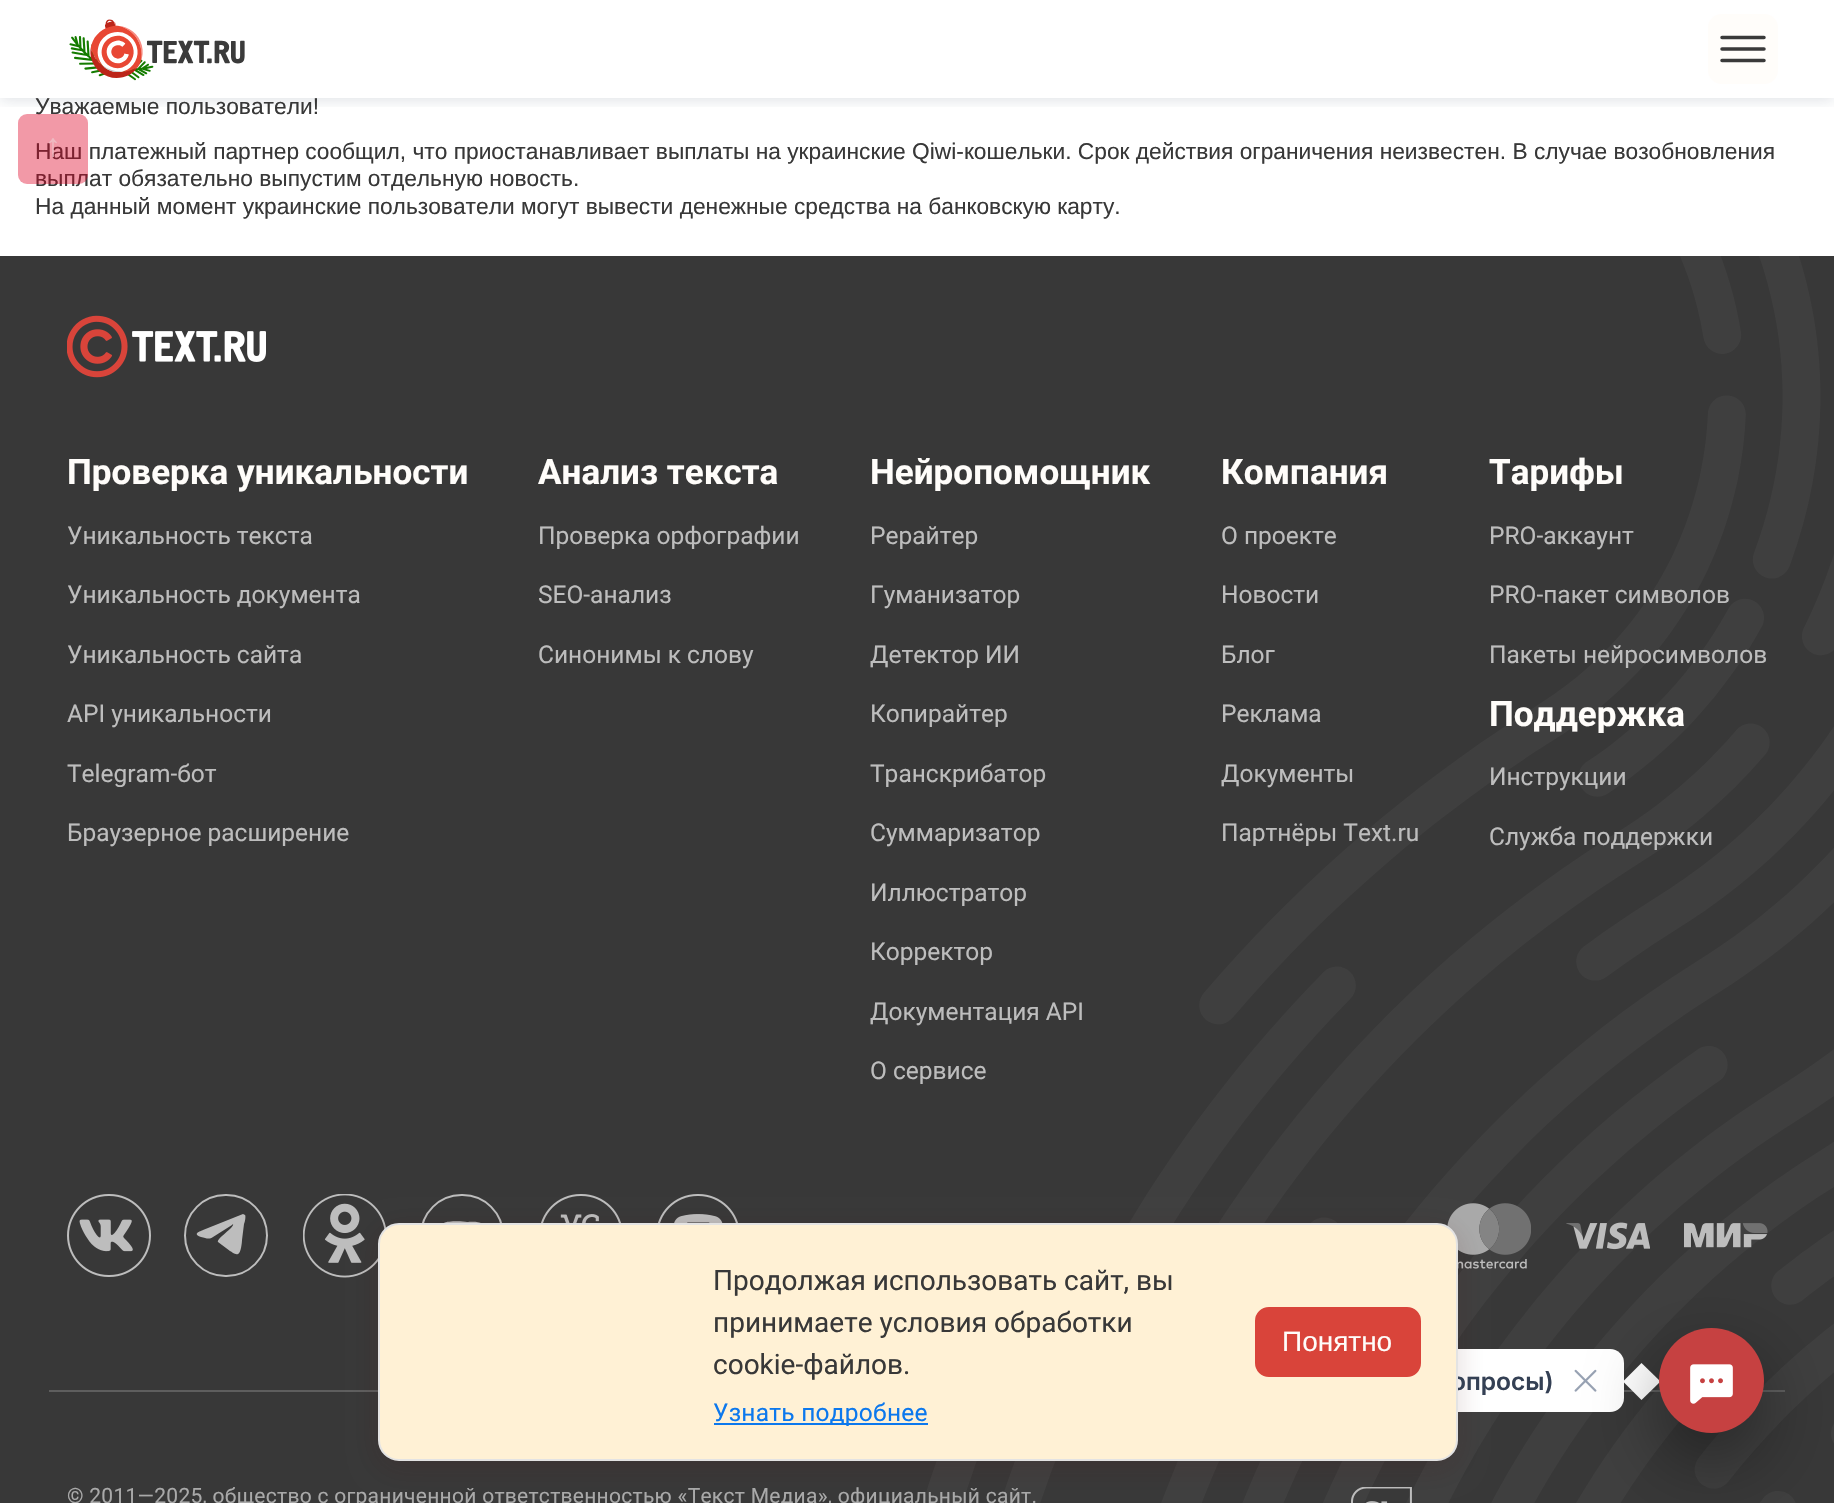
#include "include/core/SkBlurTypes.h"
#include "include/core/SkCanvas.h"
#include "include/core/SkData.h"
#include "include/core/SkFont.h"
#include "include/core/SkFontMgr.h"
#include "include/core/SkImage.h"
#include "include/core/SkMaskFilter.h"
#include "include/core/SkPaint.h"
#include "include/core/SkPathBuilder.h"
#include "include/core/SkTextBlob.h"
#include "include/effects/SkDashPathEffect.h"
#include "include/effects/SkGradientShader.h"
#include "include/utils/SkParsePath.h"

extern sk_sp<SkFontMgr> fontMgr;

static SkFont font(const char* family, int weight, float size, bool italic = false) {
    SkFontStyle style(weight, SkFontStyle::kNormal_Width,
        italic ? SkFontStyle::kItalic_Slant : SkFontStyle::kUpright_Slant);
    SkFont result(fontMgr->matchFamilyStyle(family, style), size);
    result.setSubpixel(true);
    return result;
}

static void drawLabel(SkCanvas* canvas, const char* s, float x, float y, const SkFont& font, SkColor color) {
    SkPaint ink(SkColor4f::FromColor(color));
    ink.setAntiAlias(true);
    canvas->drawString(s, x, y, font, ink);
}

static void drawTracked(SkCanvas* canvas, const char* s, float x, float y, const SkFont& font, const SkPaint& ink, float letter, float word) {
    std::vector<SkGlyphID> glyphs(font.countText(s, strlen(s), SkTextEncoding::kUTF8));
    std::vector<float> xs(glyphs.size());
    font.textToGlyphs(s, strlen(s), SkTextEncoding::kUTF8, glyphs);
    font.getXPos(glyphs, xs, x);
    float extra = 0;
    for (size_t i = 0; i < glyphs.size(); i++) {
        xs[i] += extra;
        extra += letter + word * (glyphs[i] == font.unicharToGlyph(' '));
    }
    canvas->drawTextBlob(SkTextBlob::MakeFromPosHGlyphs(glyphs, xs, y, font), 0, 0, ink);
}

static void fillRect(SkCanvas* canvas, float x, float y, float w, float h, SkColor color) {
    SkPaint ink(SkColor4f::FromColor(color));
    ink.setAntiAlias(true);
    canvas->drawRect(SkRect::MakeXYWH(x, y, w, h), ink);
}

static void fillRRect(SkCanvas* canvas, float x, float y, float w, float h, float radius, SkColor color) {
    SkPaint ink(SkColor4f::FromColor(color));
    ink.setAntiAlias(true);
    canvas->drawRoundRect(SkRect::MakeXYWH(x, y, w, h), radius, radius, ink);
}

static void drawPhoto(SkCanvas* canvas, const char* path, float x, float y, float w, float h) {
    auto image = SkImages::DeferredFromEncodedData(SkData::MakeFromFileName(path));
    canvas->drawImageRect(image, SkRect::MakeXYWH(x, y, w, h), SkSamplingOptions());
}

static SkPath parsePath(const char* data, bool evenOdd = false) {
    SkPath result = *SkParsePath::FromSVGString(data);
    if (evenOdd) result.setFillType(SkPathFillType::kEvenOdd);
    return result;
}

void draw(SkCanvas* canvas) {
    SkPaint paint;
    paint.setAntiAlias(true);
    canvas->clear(0xFFFFFFFF);
    canvas->save();
    canvas->clipRect(SkRect::MakeXYWH(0, 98, 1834, 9));
    paint.setColor(0x24162C46);
    paint.setMaskFilter(SkMaskFilter::MakeBlur(kNormal_SkBlurStyle, 7));
    canvas->drawRect(SkRect::MakeXYWH(0, 2, 1834, 98), paint);
    paint.setMaskFilter(nullptr);
    canvas->restore();
    drawPhoto(canvas, "assets/img1.png", 69, 19, 176, 62);
    fillRRect(canvas, 1708, 14, 70, 70, 14, 0xFFFFFDFA);
    paint.setStroke(true);
    paint.setStrokeWidth(3.5f);
    paint.setStrokeCap(SkPaint::kRound_Cap);
    paint.setColor(0xFF3A3A3A);
    canvas->drawPath(parsePath("M1722 37.5H1764M1722 49H1764M1722 60.5H1764"), paint);
    SkFont font1 = font("Liberation Sans", 400, 22.75f);
    drawLabel(canvas, "Уважаемые пользователи!", 35, 114, font1, 0xFF383838);
    drawLabel(canvas, "Наш платежный партнер сообщил, что приостанавливает выплаты на украинские Qiwi-кошельки. Срок действия ограничения неизвестен. В случае возобновления", 35, 159, font1, 0xFF383838);
    drawLabel(canvas, "выплат обязательно выпустим отдельную новость.", 35, 186, font1, 0xFF383838);
    drawLabel(canvas, "На данный момент украинские пользователи могут вывести денежные средства на банковскую карту.", 35, 214, font1, 0xFF383838);
    fillRRect(canvas, 18, 114, 70, 70, 9, 0x66DF0024);
    SkFont font2 = font("Liberation Sans", 700, 32);
    drawLabel(canvas, "↑", 45, 156, font2, 0xFFEFBAC2);
    fillRect(canvas, 0, 256, 1834, 1247, 0xFF383838);
    drawPhoto(canvas, "assets/img2.png", 923, 256, 911, 1247);
    drawPhoto(canvas, "assets/img3.png", 67, 315, 199, 63);
    SkFont font3 = font("Roboto", 700, 35);
    paint.setStroke(false);
    paint.setColor(0xFFFFFDFA);
    drawTracked(canvas, "Проверка уникальности", 67, 484, font3, paint, 0.05f, 0);
    SkFont font4 = font("Roboto", 400, 24.5f);
    drawLabel(canvas, "Уникальность текста", 67, 544, font4, 0xFFBDBDBD);
    drawLabel(canvas, "Уникальность документа", 67, 603, font4, 0xFFBDBDBD);
    drawLabel(canvas, "Уникальность сайта", 67, 663, font4, 0xFFBDBDBD);
    drawLabel(canvas, "API уникальности", 67, 722, font4, 0xFFBDBDBD);
    drawLabel(canvas, "Telegram-бот", 67, 782, font4, 0xFFBDBDBD);
    drawLabel(canvas, "Браузерное расширение", 67, 841, font4, 0xFFBDBDBD);
    drawTracked(canvas, "Анализ текста", 538, 484, font3, paint, 0.05f, 0);
    drawLabel(canvas, "Проверка орфографии", 538, 544, font4, 0xFFBDBDBD);
    drawLabel(canvas, "SEO-анализ", 538, 603, font4, 0xFFBDBDBD);
    drawLabel(canvas, "Синонимы к слову", 538, 663, font4, 0xFFBDBDBD);
    drawTracked(canvas, "Нейропомощник", 870, 484, font3, paint, 0.05f, 0);
    drawLabel(canvas, "Рерайтер", 870, 544, font4, 0xFFBDBDBD);
    drawLabel(canvas, "Гуманизатор", 870, 603, font4, 0xFFBDBDBD);
    drawLabel(canvas, "Детектор ИИ", 870, 663, font4, 0xFFBDBDBD);
    drawLabel(canvas, "Копирайтер", 870, 722, font4, 0xFFBDBDBD);
    drawLabel(canvas, "Транскрибатор", 870, 782, font4, 0xFFBDBDBD);
    drawLabel(canvas, "Суммаризатор", 870, 841, font4, 0xFFBDBDBD);
    drawLabel(canvas, "Иллюстратор", 870, 901, font4, 0xFFBDBDBD);
    drawLabel(canvas, "Корректор", 870, 960, font4, 0xFFBDBDBD);
    drawLabel(canvas, "Документация API", 870, 1020, font4, 0xFFBDBDBD);
    drawLabel(canvas, "О сервисе", 870, 1079, font4, 0xFFBDBDBD);
    drawTracked(canvas, "Компания", 1221, 484, font3, paint, 0.05f, 0);
    drawLabel(canvas, "О проекте", 1221, 544, font4, 0xFFBDBDBD);
    drawLabel(canvas, "Новости", 1221, 603, font4, 0xFFBDBDBD);
    drawLabel(canvas, "Блог", 1221, 663, font4, 0xFFBDBDBD);
    drawLabel(canvas, "Реклама", 1221, 722, font4, 0xFFBDBDBD);
    drawLabel(canvas, "Документы", 1221, 782, font4, 0xFFBDBDBD);
    drawLabel(canvas, "Партнёры Text.ru", 1221, 841, font4, 0xFFBDBDBD);
    drawTracked(canvas, "Тарифы", 1489, 484, font3, paint, 0.05f, 0);
    drawLabel(canvas, "PRO-аккаунт", 1489, 544, font4, 0xFFBDBDBD);
    drawLabel(canvas, "PRO-пакет символов", 1489, 603, font4, 0xFFBDBDBD);
    drawLabel(canvas, "Пакеты нейросимволов", 1489, 663, font4, 0xFFBDBDBD);
    drawTracked(canvas, "Поддержка", 1489, 726, font3, paint, 0.05f, 0);
    drawLabel(canvas, "Инструкции", 1489, 785, font4, 0xFFBDBDBD);
    drawLabel(canvas, "Служба поддержки", 1489, 845, font4, 0xFFBDBDBD);
    fillRect(canvas, 49, 1390, 1736, 2, 0xFF5E5E5E);
    drawPhoto(canvas, "assets/img4.png", 67, 1194, 84, 83);
    paint.setColor(0xFFBDBDBD);
    canvas->drawPath(parsePath("M243 1214L203 1230C198 1232 193 1234 201 1237C206 1238 209 1240 213 1237L232 1225L233 1224C235 1227 216 1239 218 1242L230 1251C232 1252 235 1255 238 1254C241 1253 242 1242 242 1240L244 1224C245 1222 246 1216 245 1215Z"), paint);
    paint.setStroke(true);
    paint.setStrokeWidth(2);
    paint.setStrokeCap(SkPaint::kButt_Cap);
    canvas->drawRoundRect(SkRect::MakeXYWH(185, 1195, 82, 81), 40.5f, 40.5f, paint);
    drawPhoto(canvas, "assets/img5.png", 303, 1194, 83, 84);
    paint.setStroke(false);
    canvas->drawPath(parsePath("M461 1250C457 1250 447 1251 443 1249C439 1246 439 1226 444 1223C447 1221 462 1221 467 1222C470 1222 479 1221 482 1224C485 1227 485 1246 481 1249C477 1251 465 1250 461 1250ZM458 1242L469 1236L458 1230Z"), paint);
    paint.setStroke(true);
    canvas->drawRoundRect(SkRect::MakeXYWH(421, 1195, 82, 81), 40.5f, 40.5f, paint);
    drawPhoto(canvas, "assets/img6.png", 541, 1194, 80, 29);
    drawPhoto(canvas, "assets/img7.png", 658, 1194, 80, 29);
    drawPhoto(canvas, "assets/img8.png", 1447, 1203, 84, 66);
    drawPhoto(canvas, "assets/img9.png", 1566, 1222, 84, 28);
    drawPhoto(canvas, "assets/img10.png", 1684, 1223, 84, 25);
    SkFont font5 = font("Roboto", 400, 21);
    paint.setStroke(false);
    paint.setColor(0xFFA9A9A9);
    drawTracked(canvas, "© 2011—2025, общество с ограниченной ответственностью «Текст Медиа», официальный сайт.", 67, 1503, font5, paint, 0.28f, 0);
    drawPhoto(canvas, "assets/img11.png", 1351, 1487, 61, 16);
    fillRRect(canvas, 1110, 1349, 514, 63, 14, 0xFFFFFFFF);
    paint.setColor(0x294C1414);
    paint.setMaskFilter(SkMaskFilter::MakeBlur(kNormal_SkBlurStyle, 14));
    canvas->drawRoundRect(SkRect::MakeXYWH(378, 1230, 1080, 238), 21, 21, paint);
    paint.setMaskFilter(nullptr);
    SkFont font6 = font("Inter", 600, 24.5f);
    drawLabel(canvas, "опросы)", 1451, 1390, font6, 0xFF344054);
    paint.setColor(0xFFFFF1D5);
    canvas->drawRoundRect(SkRect::MakeXYWH(379, 1224, 1078, 236), 20, 20, paint);
    paint.setStroke(true);
    paint.setColor(0xFFE3E3E3);
    canvas->drawRoundRect(SkRect::MakeXYWH(379, 1224, 1078, 236), 20, 20, paint);
    SkFont font7 = font("Roboto", 400, 28);
    drawLabel(canvas, "Продолжая использовать сайт, вы", 713, 1290, font7, 0xFF383838);
    drawLabel(canvas, "принимаете условия обработки", 713, 1332, font7, 0xFF383838);
    drawLabel(canvas, "cookie-файлов.", 713, 1374, font7, 0xFF383838);
    fillRect(canvas, 714, 1423, 214, 2, 0xFF0C78ED);
    paint.setStroke(false);
    paint.setColor(0xFF0C78ED);
    drawTracked(canvas, "Узнать подробнее", 713, 1421, font4, paint, 0.25f, 0);
    paint.setColor(0xFFD9443A);
    canvas->drawRoundRect(SkRect::MakeXYWH(1256, 1308, 164, 68), 13, 13, paint);
    paint.setStroke(true);
    canvas->drawRoundRect(SkRect::MakeXYWH(1256, 1308, 164, 68), 13, 13, paint);
    SkFont font8 = font("Liberation Sans", 400, 28);
    drawLabel(canvas, "Понятно", 1282, 1351, font8, 0xFFFFFDFA);
    drawPhoto(canvas, "assets/img12.png", 1574, 1369, 23, 23);
    paint.setStroke(false);
    paint.setColor(0xFFFFFFFF);
    canvas->drawPath(parsePath("M1641.5 1363L1660.5 1381.5L1641.5 1400L1623 1381.5Z"), paint);
    paint.setColor(0x66000000);
    paint.setMaskFilter(SkMaskFilter::MakeBlur(kNormal_SkBlurStyle, 35));
    canvas->drawRoundRect(SkRect::MakeXYWH(1659, 1356, 105, 105), 52.5f, 52.5f, paint);
    paint.setMaskFilter(nullptr);
    paint.setColor(0xFFC64141);
    canvas->drawCircle(1711.5f, 1380.5f, 52.5f, paint);
    drawPhoto(canvas, "assets/img13.png", 1690, 1364, 43, 40);
}
